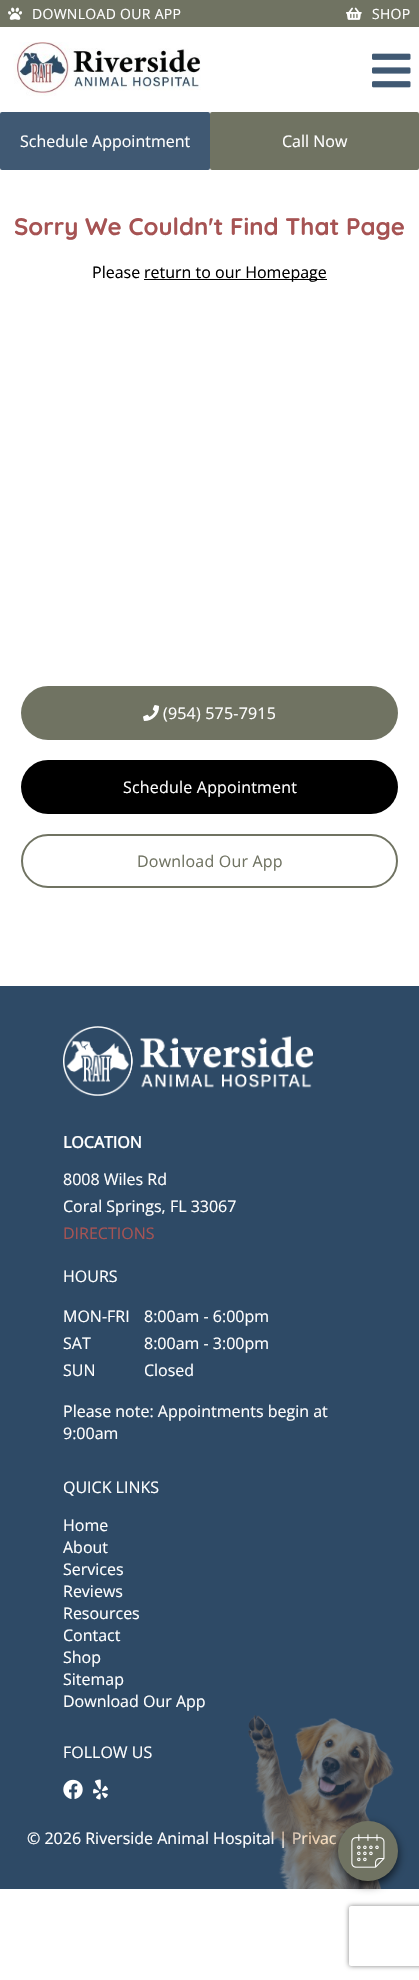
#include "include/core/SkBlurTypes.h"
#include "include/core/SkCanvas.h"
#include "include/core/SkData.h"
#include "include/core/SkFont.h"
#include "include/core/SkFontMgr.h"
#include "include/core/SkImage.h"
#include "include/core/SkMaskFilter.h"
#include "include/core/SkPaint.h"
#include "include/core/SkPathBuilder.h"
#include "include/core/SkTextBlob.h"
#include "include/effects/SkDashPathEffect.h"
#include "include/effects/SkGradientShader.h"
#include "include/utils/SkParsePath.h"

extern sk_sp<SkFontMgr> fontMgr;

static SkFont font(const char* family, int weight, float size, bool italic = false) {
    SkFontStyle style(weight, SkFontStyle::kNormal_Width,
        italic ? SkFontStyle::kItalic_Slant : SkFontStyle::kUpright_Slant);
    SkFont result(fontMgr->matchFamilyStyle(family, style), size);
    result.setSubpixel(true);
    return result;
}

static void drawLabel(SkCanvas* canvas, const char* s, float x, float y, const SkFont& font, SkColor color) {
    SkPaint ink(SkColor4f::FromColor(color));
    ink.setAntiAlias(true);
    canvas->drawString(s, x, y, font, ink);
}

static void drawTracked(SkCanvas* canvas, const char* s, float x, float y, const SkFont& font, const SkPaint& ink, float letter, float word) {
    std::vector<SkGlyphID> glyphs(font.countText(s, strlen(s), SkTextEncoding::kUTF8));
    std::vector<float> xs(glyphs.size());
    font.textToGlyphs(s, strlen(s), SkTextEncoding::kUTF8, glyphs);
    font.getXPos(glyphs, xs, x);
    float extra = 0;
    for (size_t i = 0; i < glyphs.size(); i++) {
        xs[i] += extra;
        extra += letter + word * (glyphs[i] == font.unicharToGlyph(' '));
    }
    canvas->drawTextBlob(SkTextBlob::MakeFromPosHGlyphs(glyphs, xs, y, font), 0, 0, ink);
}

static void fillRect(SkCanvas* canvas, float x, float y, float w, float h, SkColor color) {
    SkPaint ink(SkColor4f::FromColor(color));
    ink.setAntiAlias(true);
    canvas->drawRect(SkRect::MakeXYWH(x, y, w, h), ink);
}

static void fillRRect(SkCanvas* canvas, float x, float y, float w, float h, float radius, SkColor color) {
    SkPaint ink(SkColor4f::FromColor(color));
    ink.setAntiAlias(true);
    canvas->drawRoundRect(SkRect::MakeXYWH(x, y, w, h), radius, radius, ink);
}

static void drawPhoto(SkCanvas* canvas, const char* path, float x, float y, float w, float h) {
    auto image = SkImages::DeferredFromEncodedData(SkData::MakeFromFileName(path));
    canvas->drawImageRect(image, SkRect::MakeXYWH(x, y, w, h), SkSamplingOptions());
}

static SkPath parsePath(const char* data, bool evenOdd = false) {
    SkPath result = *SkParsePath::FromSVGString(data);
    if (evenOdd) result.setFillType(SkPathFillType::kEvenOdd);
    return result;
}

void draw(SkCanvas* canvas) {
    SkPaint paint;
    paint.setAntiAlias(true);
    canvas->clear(0xFFFFFFFF);
    fillRect(canvas, 0, 0, 419, 27, 0xFF707362);
    drawPhoto(canvas, "assets/img1.png", 8, 7, 14, 13);
    SkFont font1 = font("Open Sans", 400, 14);
    paint.setColor(0xFFFFFFFF);
    drawTracked(canvas, "DOWNLOAD OUR APP", 32, 19, font1, paint, 0.3f, 0);
    drawPhoto(canvas, "assets/img2.png", 346, 7, 16, 13);
    drawTracked(canvas, "SHOP", 372, 19, font1, paint, 0.3f, 0);
    drawPhoto(canvas, "assets/img3.png", 13, 42, 188, 54);
    drawPhoto(canvas, "assets/img4.png", 372, 53, 39, 35);
    fillRRect(canvas, 0, 112, 210, 58, 2, 0xFF405973);
    SkFont font2 = font("Open Sans", 400, 16);
    drawLabel(canvas, "Schedule Appointment", 20, 147, font2, 0xFFFFFFFF);
    fillRRect(canvas, 210, 112, 209, 58, 2, 0xFF707362);
    drawLabel(canvas, "Call Now", 282, 147, font2, 0xFFFFFFFF);
    SkFont font3 = font("Quicksand", 700, 24);
    drawLabel(canvas, "Sorry We Couldn't Find That Page", 14, 235, font3, 0xFFA65353);
    drawLabel(canvas, "Please", 92, 278, font2, 0xFF000000);
    fillRect(canvas, 144, 279, 183, 1, 0xFF000000);
    drawLabel(canvas, "return to our Homepage", 144, 278, font2, 0xFF000000);
    fillRRect(canvas, 21, 686, 377, 54, 27, 0xFF707362);
    drawPhoto(canvas, "assets/img5.png", 143, 705, 16, 16);
    drawTracked(canvas, "(954) 575-7915", 163, 719, font2, paint, 0.2f, 0);
    fillRRect(canvas, 21, 760, 377, 54, 27, 0xFF000000);
    drawTracked(canvas, "Schedule Appointment", 123, 793, font2, paint, 0.2f, 0);
    paint.setStroke(true);
    paint.setStrokeWidth(2);
    paint.setColor(0xFF707362);
    canvas->drawRoundRect(SkRect::MakeXYWH(22, 835, 375, 52), 26, 26, paint);
    paint.setStroke(false);
    drawTracked(canvas, "Download Our App", 137, 867, font2, paint, 0.2f, 0);
    fillRect(canvas, 0, 986, 419, 903, 0xFF2E4A66);
    drawPhoto(canvas, "assets/img6.png", 63, 1026, 250, 70);
    SkFont font4 = font("Open Sans", 700, 16);
    drawLabel(canvas, "LOCATION", 63, 1148, font4, 0xFFFFFFFF);
    drawLabel(canvas, "8008 Wiles Rd", 63, 1185, font2, 0xFFFFFFFF);
    drawLabel(canvas, "Coral Springs, FL 33067", 63, 1212, font2, 0xFFFFFFFF);
    drawLabel(canvas, "DIRECTIONS", 63, 1239, font2, 0xFFA65353);
    drawLabel(canvas, "HOURS", 63, 1282, font2, 0xFFFFFFFF);
    drawLabel(canvas, "MON-FRI", 63, 1322, font2, 0xFFFFFFFF);
    drawLabel(canvas, "8:00am - 6:00pm", 144, 1322, font2, 0xFFFFFFFF);
    drawLabel(canvas, "SAT", 63, 1349, font2, 0xFFFFFFFF);
    drawLabel(canvas, "8:00am - 3:00pm", 144, 1349, font2, 0xFFFFFFFF);
    drawLabel(canvas, "SUN", 63, 1376, font2, 0xFFFFFFFF);
    drawLabel(canvas, "Closed", 144, 1376, font2, 0xFFFFFFFF);
    drawLabel(canvas, "Please note: Appointments begin at", 63, 1417, font2, 0xFFFFFFFF);
    drawLabel(canvas, "9:00am", 63, 1439, font2, 0xFFFFFFFF);
    drawLabel(canvas, "QUICK LINKS", 63, 1493, font2, 0xFFFFFFFF);
    drawLabel(canvas, "Home", 63, 1531, font2, 0xFFFFFFFF);
    drawLabel(canvas, "About", 63, 1553, font2, 0xFFFFFFFF);
    drawLabel(canvas, "Services", 63, 1575, font2, 0xFFFFFFFF);
    drawLabel(canvas, "Reviews", 63, 1597, font2, 0xFFFFFFFF);
    drawLabel(canvas, "Resources", 63, 1619, font2, 0xFFFFFFFF);
    drawLabel(canvas, "Contact", 63, 1641, font2, 0xFFFFFFFF);
    drawLabel(canvas, "Shop", 63, 1663, font2, 0xFFFFFFFF);
    drawLabel(canvas, "Sitemap", 63, 1685, font2, 0xFFFFFFFF);
    drawLabel(canvas, "Download Our App", 63, 1707, font2, 0xFFFFFFFF);
    drawLabel(canvas, "FOLLOW US", 63, 1758, font2, 0xFFFFFFFF);
    drawPhoto(canvas, "assets/img7.png", 63, 1779, 20, 20);
    drawPhoto(canvas, "assets/img8.png", 93, 1779, 15, 21);
    drawLabel(canvas, "© 2026 Riverside Animal Hospital | Privac", 27, 1844, font2, 0xFFFFFFFF);
    drawPhoto(canvas, "assets/img9.png", 248, 1715, 146, 174);
    paint.setColor(0xB3000000);
    paint.setMaskFilter(SkMaskFilter::MakeBlur(kNormal_SkBlurStyle, 5));
    canvas->drawRoundRect(SkRect::MakeXYWH(338, 1825, 60, 60), 30, 30, paint);
    paint.setMaskFilter(nullptr);
    paint.setColor(0xFF707362);
    canvas->drawCircle(368, 1851, 30, paint);
    drawPhoto(canvas, "assets/img10.png", 351, 1834, 34, 34);
    canvas->save();
    canvas->clipPath(parsePath("M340 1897H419V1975H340ZM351 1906H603C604 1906 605 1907 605 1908V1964C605 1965 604 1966 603 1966H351C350 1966 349 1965 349 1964V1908C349 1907 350 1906 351 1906Z", true), true);
    paint.setColor(0xFF808080);
    paint.setMaskFilter(SkMaskFilter::MakeBlur(kNormal_SkBlurStyle, 2.5f));
    canvas->drawRoundRect(SkRect::MakeXYWH(349, 1906, 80, 60), 2, 2, paint);
    paint.setMaskFilter(nullptr);
    canvas->restore();
}
